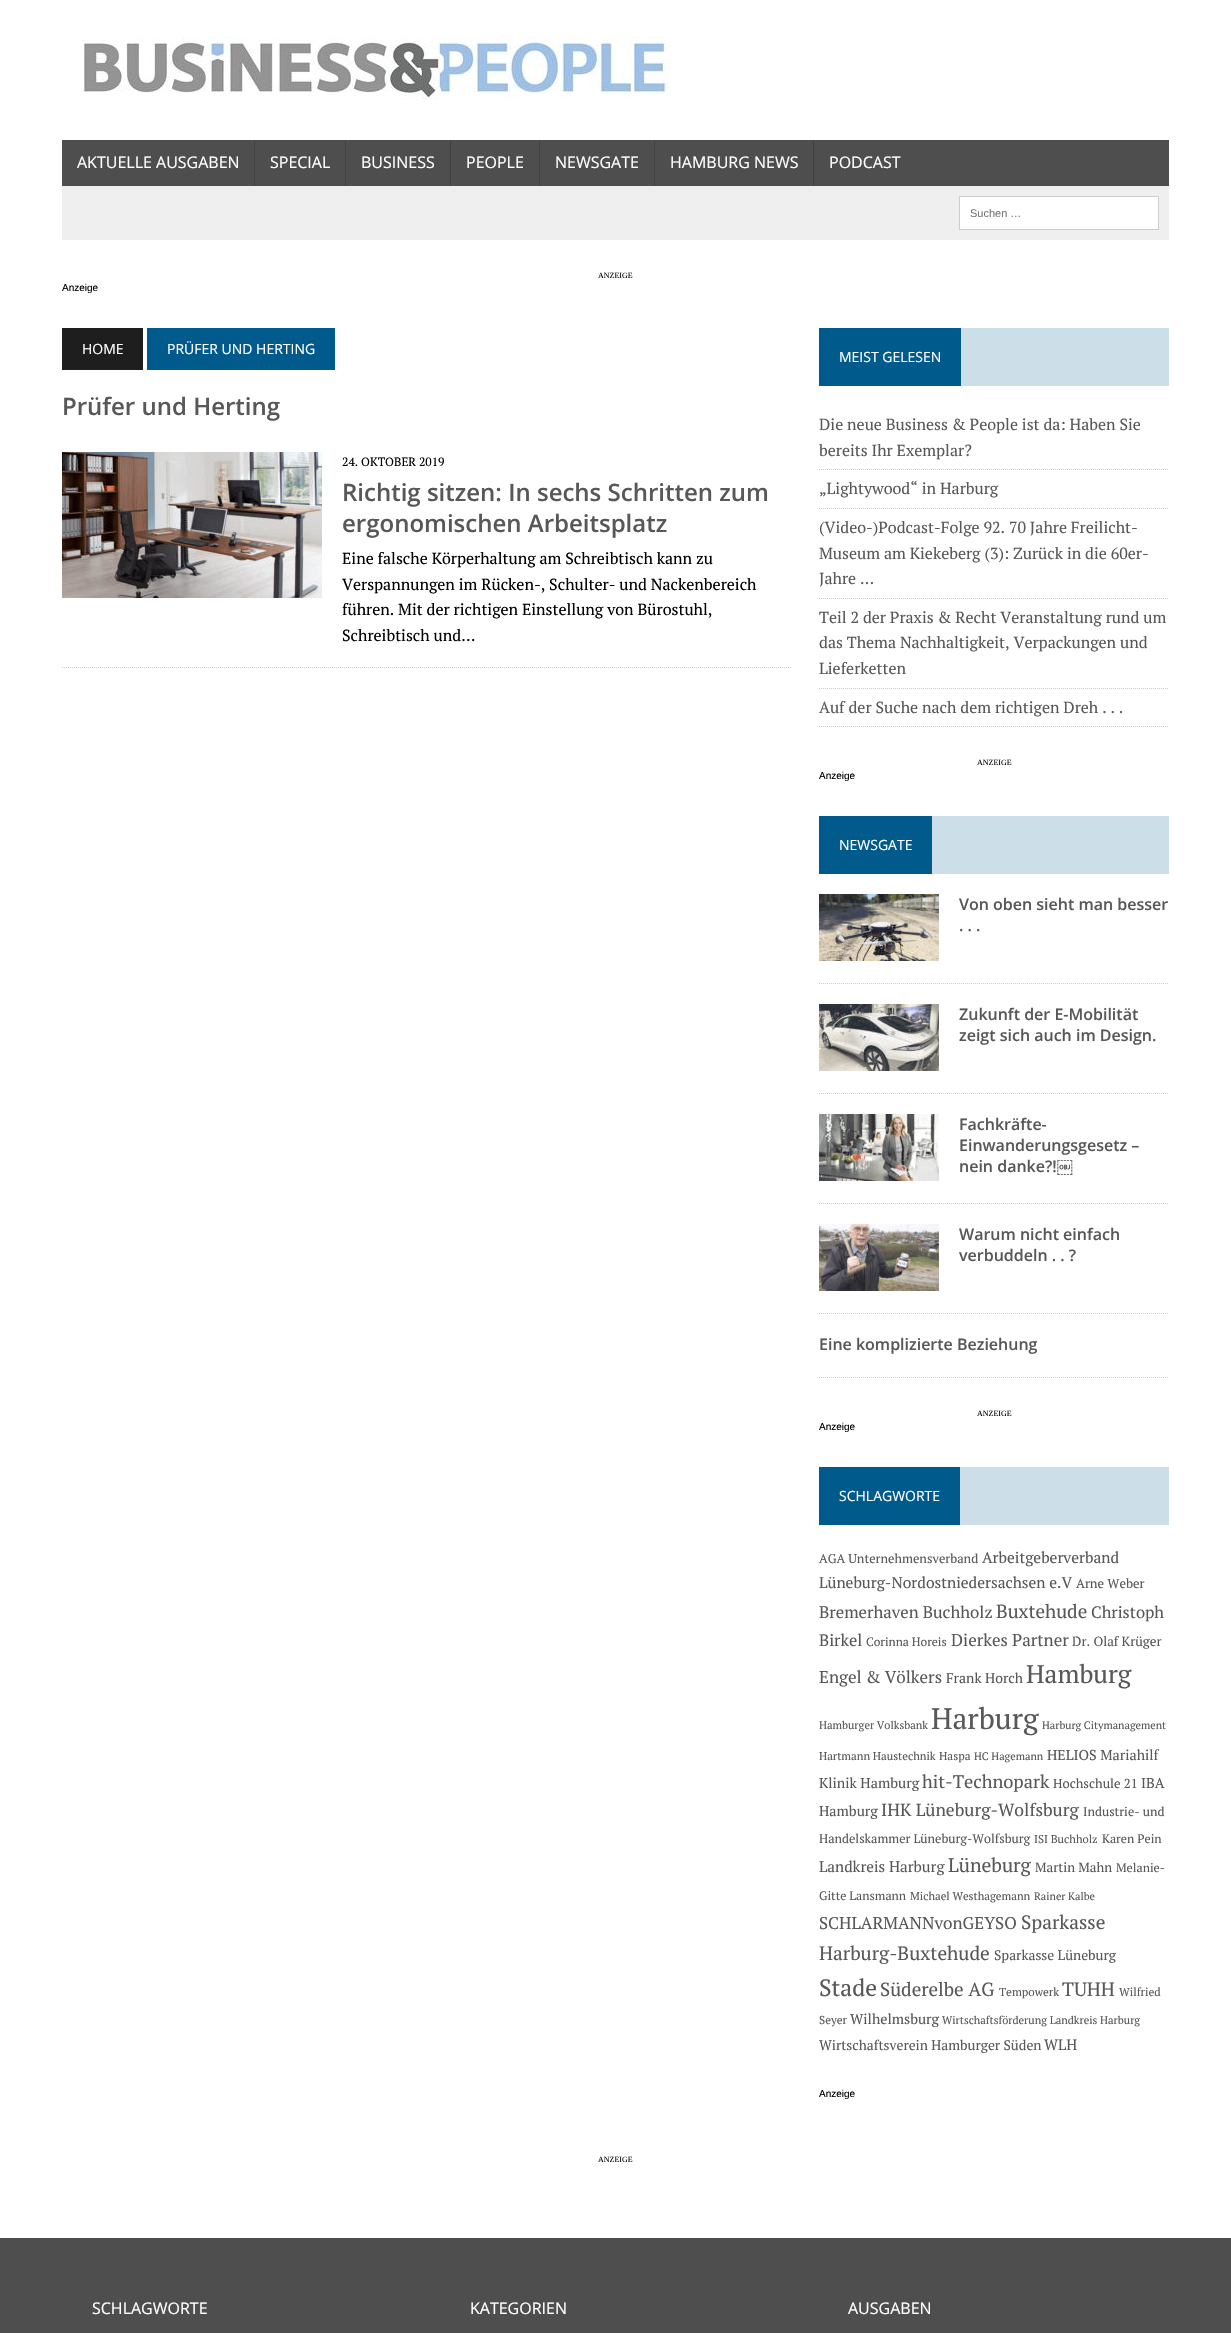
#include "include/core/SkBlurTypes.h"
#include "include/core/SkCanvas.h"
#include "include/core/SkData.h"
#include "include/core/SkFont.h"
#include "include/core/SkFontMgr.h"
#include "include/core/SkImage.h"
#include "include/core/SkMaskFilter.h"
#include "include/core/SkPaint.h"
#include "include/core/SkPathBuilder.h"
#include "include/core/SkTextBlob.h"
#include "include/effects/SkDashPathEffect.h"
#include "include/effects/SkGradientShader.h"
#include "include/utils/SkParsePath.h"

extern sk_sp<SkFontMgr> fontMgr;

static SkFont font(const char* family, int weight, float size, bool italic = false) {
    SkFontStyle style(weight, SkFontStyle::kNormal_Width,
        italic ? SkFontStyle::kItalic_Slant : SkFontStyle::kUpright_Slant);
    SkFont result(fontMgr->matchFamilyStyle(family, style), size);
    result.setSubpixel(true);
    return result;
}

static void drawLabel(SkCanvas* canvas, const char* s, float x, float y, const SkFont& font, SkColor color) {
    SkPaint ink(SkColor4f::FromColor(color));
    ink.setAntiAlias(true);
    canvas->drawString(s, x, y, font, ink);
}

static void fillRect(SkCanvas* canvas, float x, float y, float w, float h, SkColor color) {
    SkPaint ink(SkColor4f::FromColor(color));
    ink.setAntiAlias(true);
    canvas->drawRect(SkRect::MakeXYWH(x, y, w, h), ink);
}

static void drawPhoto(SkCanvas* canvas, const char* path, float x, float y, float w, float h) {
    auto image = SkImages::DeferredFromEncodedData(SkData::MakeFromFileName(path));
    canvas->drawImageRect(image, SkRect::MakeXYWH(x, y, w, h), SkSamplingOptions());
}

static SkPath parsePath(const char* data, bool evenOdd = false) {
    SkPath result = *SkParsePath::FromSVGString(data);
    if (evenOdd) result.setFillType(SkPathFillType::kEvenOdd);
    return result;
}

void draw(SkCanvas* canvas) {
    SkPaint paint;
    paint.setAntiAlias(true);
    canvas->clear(0xFFFFFFFF);
    drawPhoto(canvas, "assets/img1.png", 81, 36, 589, 64);
    fillRect(canvas, 62, 140, 1107, 46, 0xFF4E4E4E);
    SkFont font1 = font("Open Sans", 400, 16);
    drawLabel(canvas, "AKTUELLE AUSGABEN", 77, 168, font1, 0xFFFFFFFF);
    fillRect(canvas, 254, 140, 1, 46, 0xFF424242);
    drawLabel(canvas, "SPECIAL", 270, 168, font1, 0xFFFFFFFF);
    fillRect(canvas, 345, 140, 1, 46, 0xFF424242);
    drawLabel(canvas, "BUSINESS", 361, 168, font1, 0xFFFFFFFF);
    fillRect(canvas, 450, 140, 1, 46, 0xFF424242);
    drawLabel(canvas, "PEOPLE", 466, 168, font1, 0xFFFFFFFF);
    fillRect(canvas, 539, 140, 1, 46, 0xFF424242);
    drawLabel(canvas, "NEWSGATE", 555, 168, font1, 0xFFFFFFFF);
    fillRect(canvas, 654, 140, 1, 46, 0xFF424242);
    drawLabel(canvas, "HAMBURG NEWS", 670, 168, font1, 0xFFFFFFFF);
    fillRect(canvas, 813, 140, 1, 46, 0xFF424242);
    drawLabel(canvas, "PODCAST", 829, 168, font1, 0xFFFFFFFF);
    fillRect(canvas, 62, 186, 1107, 54, 0xFFEFEFEF);
    paint.setColor(0xFFFFFFFF);
    canvas->drawRect(SkRect::MakeXYWH(959.5f, 196.5f, 199, 33), paint);
    paint.setStroke(true);
    paint.setStrokeWidth(1);
    paint.setColor(0xFFCDCDCD);
    canvas->drawRect(SkRect::MakeXYWH(959.5f, 196.5f, 199, 33), paint);
    SkFont font2 = font("Liberation Sans", 400, 11);
    drawLabel(canvas, "Suchen …", 970, 217, font2, 0xFF757575);
    SkFont font3 = font("Liberation Serif", 400, 8);
    drawLabel(canvas, "ANZEIGE", 598, 278, font3, 0xFF000000);
    SkFont font4 = font("Liberation Sans", 400, 10);
    drawLabel(canvas, "Anzeige", 62, 291, font4, 0xFF000000);
    fillRect(canvas, 62, 328, 81, 42, 0xFF1F1E1E);
    SkFont font5 = font("Open Sans", 400, 14);
    drawLabel(canvas, "HOME", 82, 354, font5, 0xFFFFFFFF);
    fillRect(canvas, 147, 328, 188, 42, 0xFF005A8C);
    drawLabel(canvas, "PRÜFER UND HERTING", 167, 354, font5, 0xFFFFFFFF);
    SkFont font6 = font("Open Sans", 600, 24);
    drawLabel(canvas, "Prüfer und Herting", 62, 415, font6, 0xFF585858);
    drawPhoto(canvas, "assets/img2.png", 62, 452, 260, 146);
    SkFont font7 = font("PT Serif", 400, 12);
    drawLabel(canvas, "24. OKTOBER 2019", 342, 466, font7, 0xFF000000);
    drawLabel(canvas, "Richtig sitzen: In sechs Schritten zum", 342, 501, font6, 0xFF585858);
    drawLabel(canvas, "ergonomischen Arbeitsplatz", 342, 532, font6, 0xFF585858);
    SkFont font8 = font("PT Serif", 400, 16);
    drawLabel(canvas, "Eine falsche Körperhaltung am Schreibtisch kann zu", 342, 564, font8, 0xFF000000);
    drawLabel(canvas, "Verspannungen im Rücken-, Schulter- und Nackenbereich", 342, 590, font8, 0xFF000000);
    drawLabel(canvas, "führen. Mit der richtigen Einstellung von Bürostuhl,", 342, 615, font8, 0xFF000000);
    drawLabel(canvas, "Schreibtisch und…", 342, 641, font8, 0xFF000000);
    paint.setPathEffect(SkDashPathEffect::Make({{1, 1}}, 0));
    canvas->drawPath(parsePath("M62 667.5H791"), paint);
    paint.setPathEffect(nullptr);
    fillRect(canvas, 961, 328, 208, 58, 0xFFCCDEE8);
    fillRect(canvas, 819, 328, 142, 58, 0xFF005A8C);
    drawLabel(canvas, "MEIST GELESEN", 839, 362, font5, 0xFFFFFFFF);
    paint.setColor(0xFFCCCCCC);
    paint.setPathEffect(SkDashPathEffect::Make({{1, 1}}, 0));
    canvas->drawPath(parsePath("M819 469.5H1169"), paint);
    paint.setPathEffect(nullptr);
    drawLabel(canvas, "Die neue Business & People ist da: Haben Sie", 819, 430, font8, 0xFF585858);
    drawLabel(canvas, "bereits Ihr Exemplar?", 819, 456, font8, 0xFF585858);
    paint.setPathEffect(SkDashPathEffect::Make({{1, 1}}, 0));
    canvas->drawPath(parsePath("M819 508.5H1169"), paint);
    paint.setPathEffect(nullptr);
    drawLabel(canvas, "„Lightywood“ in Harburg", 819, 494, font8, 0xFF585858);
    paint.setPathEffect(SkDashPathEffect::Make({{1, 1}}, 0));
    canvas->drawPath(parsePath("M819 598.5H1169"), paint);
    paint.setPathEffect(nullptr);
    drawLabel(canvas, "(Video-)Podcast-Folge 92. 70 Jahre Freilicht-", 819, 533, font8, 0xFF585858);
    drawLabel(canvas, "Museum am Kiekeberg (3): Zurück in die 60er-", 819, 559, font8, 0xFF585858);
    drawLabel(canvas, "Jahre …", 819, 584, font8, 0xFF585858);
    paint.setPathEffect(SkDashPathEffect::Make({{1, 1}}, 0));
    canvas->drawPath(parsePath("M819 688.5H1169"), paint);
    paint.setPathEffect(nullptr);
    drawLabel(canvas, "Teil 2 der Praxis & Recht Veranstaltung rund um", 819, 623, font8, 0xFF585858);
    drawLabel(canvas, "das Thema Nachhaltigkeit, Verpackungen und", 819, 648, font8, 0xFF585858);
    drawLabel(canvas, "Lieferketten", 819, 674, font8, 0xFF585858);
    paint.setPathEffect(SkDashPathEffect::Make({{1, 1}}, 0));
    canvas->drawPath(parsePath("M819 726.5H1169"), paint);
    paint.setPathEffect(nullptr);
    drawLabel(canvas, "Auf der Suche nach dem richtigen Dreh . . .", 819, 713, font8, 0xFF585858);
    drawLabel(canvas, "ANZEIGE", 977, 765, font3, 0xFF000000);
    drawLabel(canvas, "Anzeige", 819, 779, font4, 0xFF000000);
    fillRect(canvas, 932, 816, 237, 58, 0xFFCCDEE8);
    fillRect(canvas, 819, 816, 113, 58, 0xFF005A8C);
    drawLabel(canvas, "NEWSGATE", 839, 850, font5, 0xFFFFFFFF);
    drawPhoto(canvas, "assets/img3.png", 819, 894, 120, 67);
    SkFont font9 = font("Open Sans", 600, 16);
    drawLabel(canvas, "Von oben sieht man besser", 959, 910, font9, 0xFF585858);
    drawLabel(canvas, ". . .", 959, 931, font9, 0xFF585858);
    paint.setColor(0xFFCDCDCD);
    paint.setPathEffect(SkDashPathEffect::Make({{1, 1}}, 0));
    canvas->drawPath(parsePath("M819 983.5H1169"), paint);
    paint.setPathEffect(nullptr);
    drawPhoto(canvas, "assets/img4.png", 819, 1004, 120, 67);
    drawLabel(canvas, "Zukunft der E-Mobilität", 959, 1020, font9, 0xFF585858);
    drawLabel(canvas, "zeigt sich auch im Design.", 959, 1041, font9, 0xFF585858);
    paint.setPathEffect(SkDashPathEffect::Make({{1, 1}}, 0));
    canvas->drawPath(parsePath("M819 1093.5H1169"), paint);
    paint.setPathEffect(nullptr);
    drawPhoto(canvas, "assets/img5.png", 819, 1114, 120, 67);
    drawLabel(canvas, "Fachkräfte-", 959, 1130, font9, 0xFF585858);
    drawLabel(canvas, "Einwanderungsgesetz –", 959, 1151, font9, 0xFF585858);
    drawLabel(canvas, "nein danke?!￼", 959, 1172, font9, 0xFF585858);
    paint.setPathEffect(SkDashPathEffect::Make({{1, 1}}, 0));
    canvas->drawPath(parsePath("M819 1203.5H1169"), paint);
    paint.setPathEffect(nullptr);
    drawPhoto(canvas, "assets/img6.png", 819, 1224, 120, 67);
    drawLabel(canvas, "Warum nicht einfach", 959, 1240, font9, 0xFF585858);
    drawLabel(canvas, "verbuddeln . . ?", 959, 1261, font9, 0xFF585858);
    paint.setPathEffect(SkDashPathEffect::Make({{1, 1}}, 0));
    canvas->drawPath(parsePath("M819 1313.5H1169"), paint);
    paint.setPathEffect(nullptr);
    drawLabel(canvas, "Eine komplizierte Beziehung", 819, 1350, font9, 0xFF585858);
    paint.setPathEffect(SkDashPathEffect::Make({{1, 1}}, 0));
    canvas->drawPath(parsePath("M819 1377.5H1169"), paint);
    paint.setPathEffect(nullptr);
    drawLabel(canvas, "ANZEIGE", 977, 1416, font3, 0xFF000000);
    drawLabel(canvas, "Anzeige", 819, 1430, font4, 0xFF000000);
    fillRect(canvas, 960, 1467, 209, 58, 0xFFCCDEE8);
    fillRect(canvas, 819, 1467, 141, 58, 0xFF005A8C);
    drawLabel(canvas, "SCHLAGWORTE", 839, 1501, font5, 0xFFFFFFFF);
    SkFont font10 = font("PT Serif", 400, 12.75f);
    drawLabel(canvas, "AGA Unternehmensverband", 819, 1563, font10, 0xFF585858);
    SkFont font11 = font("PT Serif", 400, 15.5f);
    drawLabel(canvas, "Arbeitgeberverband", 982, 1563, font11, 0xFF585858);
    drawLabel(canvas, "Lüneburg-Nordostniedersachsen e.V", 819, 1588, font11, 0xFF585858);
    SkFont font12 = font("PT Serif", 400, 13);
    drawLabel(canvas, "Arne Weber", 1076, 1588, font12, 0xFF585858);
    SkFont font13 = font("PT Serif", 400, 16.75f);
    drawLabel(canvas, "Bremerhaven Buchholz", 819, 1618, font13, 0xFF585858);
    SkFont font14 = font("PT Serif", 400, 19);
    drawLabel(canvas, "Buxtehude", 996, 1618, font14, 0xFF585858);
    SkFont font15 = font("PT Serif", 400, 16.5f);
    drawLabel(canvas, "Christoph", 1091, 1618, font15, 0xFF585858);
    drawLabel(canvas, "Birkel", 819, 1646, font15, 0xFF585858);
    drawLabel(canvas, "Corinna Horeis", 866, 1646, font7, 0xFF585858);
    SkFont font16 = font("PT Serif", 400, 17);
    drawLabel(canvas, "Dierkes Partner", 951, 1646, font16, 0xFF585858);
    SkFont font17 = font("PT Serif", 400, 13.25f);
    drawLabel(canvas, "Dr. Olaf Krüger", 1072, 1646, font17, 0xFF585858);
    drawLabel(canvas, "Engel & Völkers", 819, 1683, font16, 0xFF585858);
    SkFont font18 = font("PT Serif", 400, 14);
    drawLabel(canvas, "Frank Horch", 946, 1683, font18, 0xFF585858);
    SkFont font19 = font("PT Serif", 400, 25.5f);
    drawLabel(canvas, "Hamburg", 1026, 1683, font19, 0xFF585858);
    SkFont font20 = font("PT Serif", 400, 11);
    drawLabel(canvas, "Hamburger Volksbank", 819, 1729, font20, 0xFF585858);
    SkFont font21 = font("PT Serif", 400, 29.5f);
    drawLabel(canvas, "Harburg", 931, 1729, font21, 0xFF585858);
    SkFont font22 = font("PT Serif", 400, 10.75f);
    drawLabel(canvas, "Harburg Citymanagement", 1042, 1729, font22, 0xFF585858);
    SkFont font23 = font("PT Serif", 400, 11.25f);
    drawLabel(canvas, "Hartmann Haustechnik", 819, 1760, font23, 0xFF585858);
    SkFont font24 = font("PT Serif", 400, 11.5f);
    drawLabel(canvas, "Haspa", 939, 1760, font24, 0xFF585858);
    drawLabel(canvas, "HC Hagemann", 974, 1760, font22, 0xFF585858);
    SkFont font25 = font("PT Serif", 400, 14.25f);
    drawLabel(canvas, "HELIOS Mariahilf", 1047, 1760, font25, 0xFF585858);
    drawLabel(canvas, "Klinik Hamburg", 819, 1788, font25, 0xFF585858);
    SkFont font26 = font("PT Serif", 400, 18.25f);
    drawLabel(canvas, "hit-Technopark", 922, 1788, font26, 0xFF585858);
    drawLabel(canvas, "Hochschule 21", 1053, 1788, font12, 0xFF585858);
    drawLabel(canvas, "IBA", 1141, 1788, font25, 0xFF585858);
    drawLabel(canvas, "Hamburg", 819, 1816, font25, 0xFF585858);
    SkFont font27 = font("PT Serif", 400, 17.6f);
    drawLabel(canvas, "IHK Lüneburg-Wolfsburg", 881, 1816, font27, 0xFF585858);
    SkFont font28 = font("PT Serif", 400, 12.6f);
    drawLabel(canvas, "Industrie- und", 1083, 1816, font28, 0xFF585858);
    drawLabel(canvas, "Handelskammer Lüneburg-Wolfsburg", 819, 1843, font28, 0xFF585858);
    drawLabel(canvas, "ISI Buchholz", 1034, 1843, font23, 0xFF585858);
    SkFont font29 = font("PT Serif", 400, 12.25f);
    drawLabel(canvas, "Karen Pein", 1102, 1843, font29, 0xFF585858);
    SkFont font30 = font("PT Serif", 400, 15.25f);
    drawLabel(canvas, "Landkreis Harburg", 819, 1872, font30, 0xFF585858);
    SkFont font31 = font("PT Serif", 400, 19.5f);
    drawLabel(canvas, "Lüneburg", 948, 1872, font31, 0xFF585858);
    drawLabel(canvas, "Martin Mahn", 1035, 1872, font17, 0xFF585858);
    drawLabel(canvas, "Melanie-", 1116, 1872, font29, 0xFF585858);
    drawLabel(canvas, "Gitte Lansmann", 819, 1900, font29, 0xFF585858);
    drawLabel(canvas, "Michael Westhagemann", 910, 1900, font23, 0xFF585858);
    drawLabel(canvas, "Rainer Kalbe", 1034, 1900, font22, 0xFF585858);
    drawLabel(canvas, "SCHLARMANNvonGEYSO", 819, 1929, font16, 0xFF585858);
    SkFont font32 = font("PT Serif", 400, 19.25f);
    drawLabel(canvas, "Sparkasse", 1021, 1929, font32, 0xFF585858);
    drawLabel(canvas, "Harburg-Buxtehude", 819, 1960, font32, 0xFF585858);
    SkFont font33 = font("PT Serif", 400, 13.75f);
    drawLabel(canvas, "Sparkasse Lüneburg", 994, 1960, font33, 0xFF585858);
    SkFont font34 = font("PT Serif", 400, 23.5f);
    drawLabel(canvas, "Stade", 819, 1996, font34, 0xFF585858);
    drawLabel(canvas, "Süderelbe AG", 880, 1996, font14, 0xFF585858);
    drawLabel(canvas, "Tempowerk", 999, 1996, font24, 0xFF585858);
    drawLabel(canvas, "TUHH", 1062, 1996, font32, 0xFF585858);
    drawLabel(canvas, "Wilfried", 1119, 1996, font24, 0xFF585858);
    drawLabel(canvas, "Seyer", 819, 2024, font24, 0xFF585858);
    drawLabel(canvas, "Wilhelmsburg", 850, 2024, font25, 0xFF585858);
    drawLabel(canvas, "Wirtschaftsförderung Landkreis Harburg", 942, 2024, font20, 0xFF585858);
    drawLabel(canvas, "Wirtschaftsverein Hamburger Süden", 819, 2050, font33, 0xFF585858);
    SkFont font35 = font("PT Serif", 400, 15);
    drawLabel(canvas, "WLH", 1044, 2050, font35, 0xFF585858);
    drawLabel(canvas, "Anzeige", 819, 2097, font4, 0xFF000000);
    drawLabel(canvas, "ANZEIGE", 598, 2162, font3, 0xFF000000);
    fillRect(canvas, 0, 2238, 1231, 95, 0xFF4E4E4E);
    drawLabel(canvas, "SCHLAGWORTE", 92, 2314, font1, 0xFFFFFFFF);
    drawLabel(canvas, "KATEGORIEN", 470, 2314, font1, 0xFFFFFFFF);
    drawLabel(canvas, "AUSGABEN", 848, 2314, font1, 0xFFFFFFFF);
}
